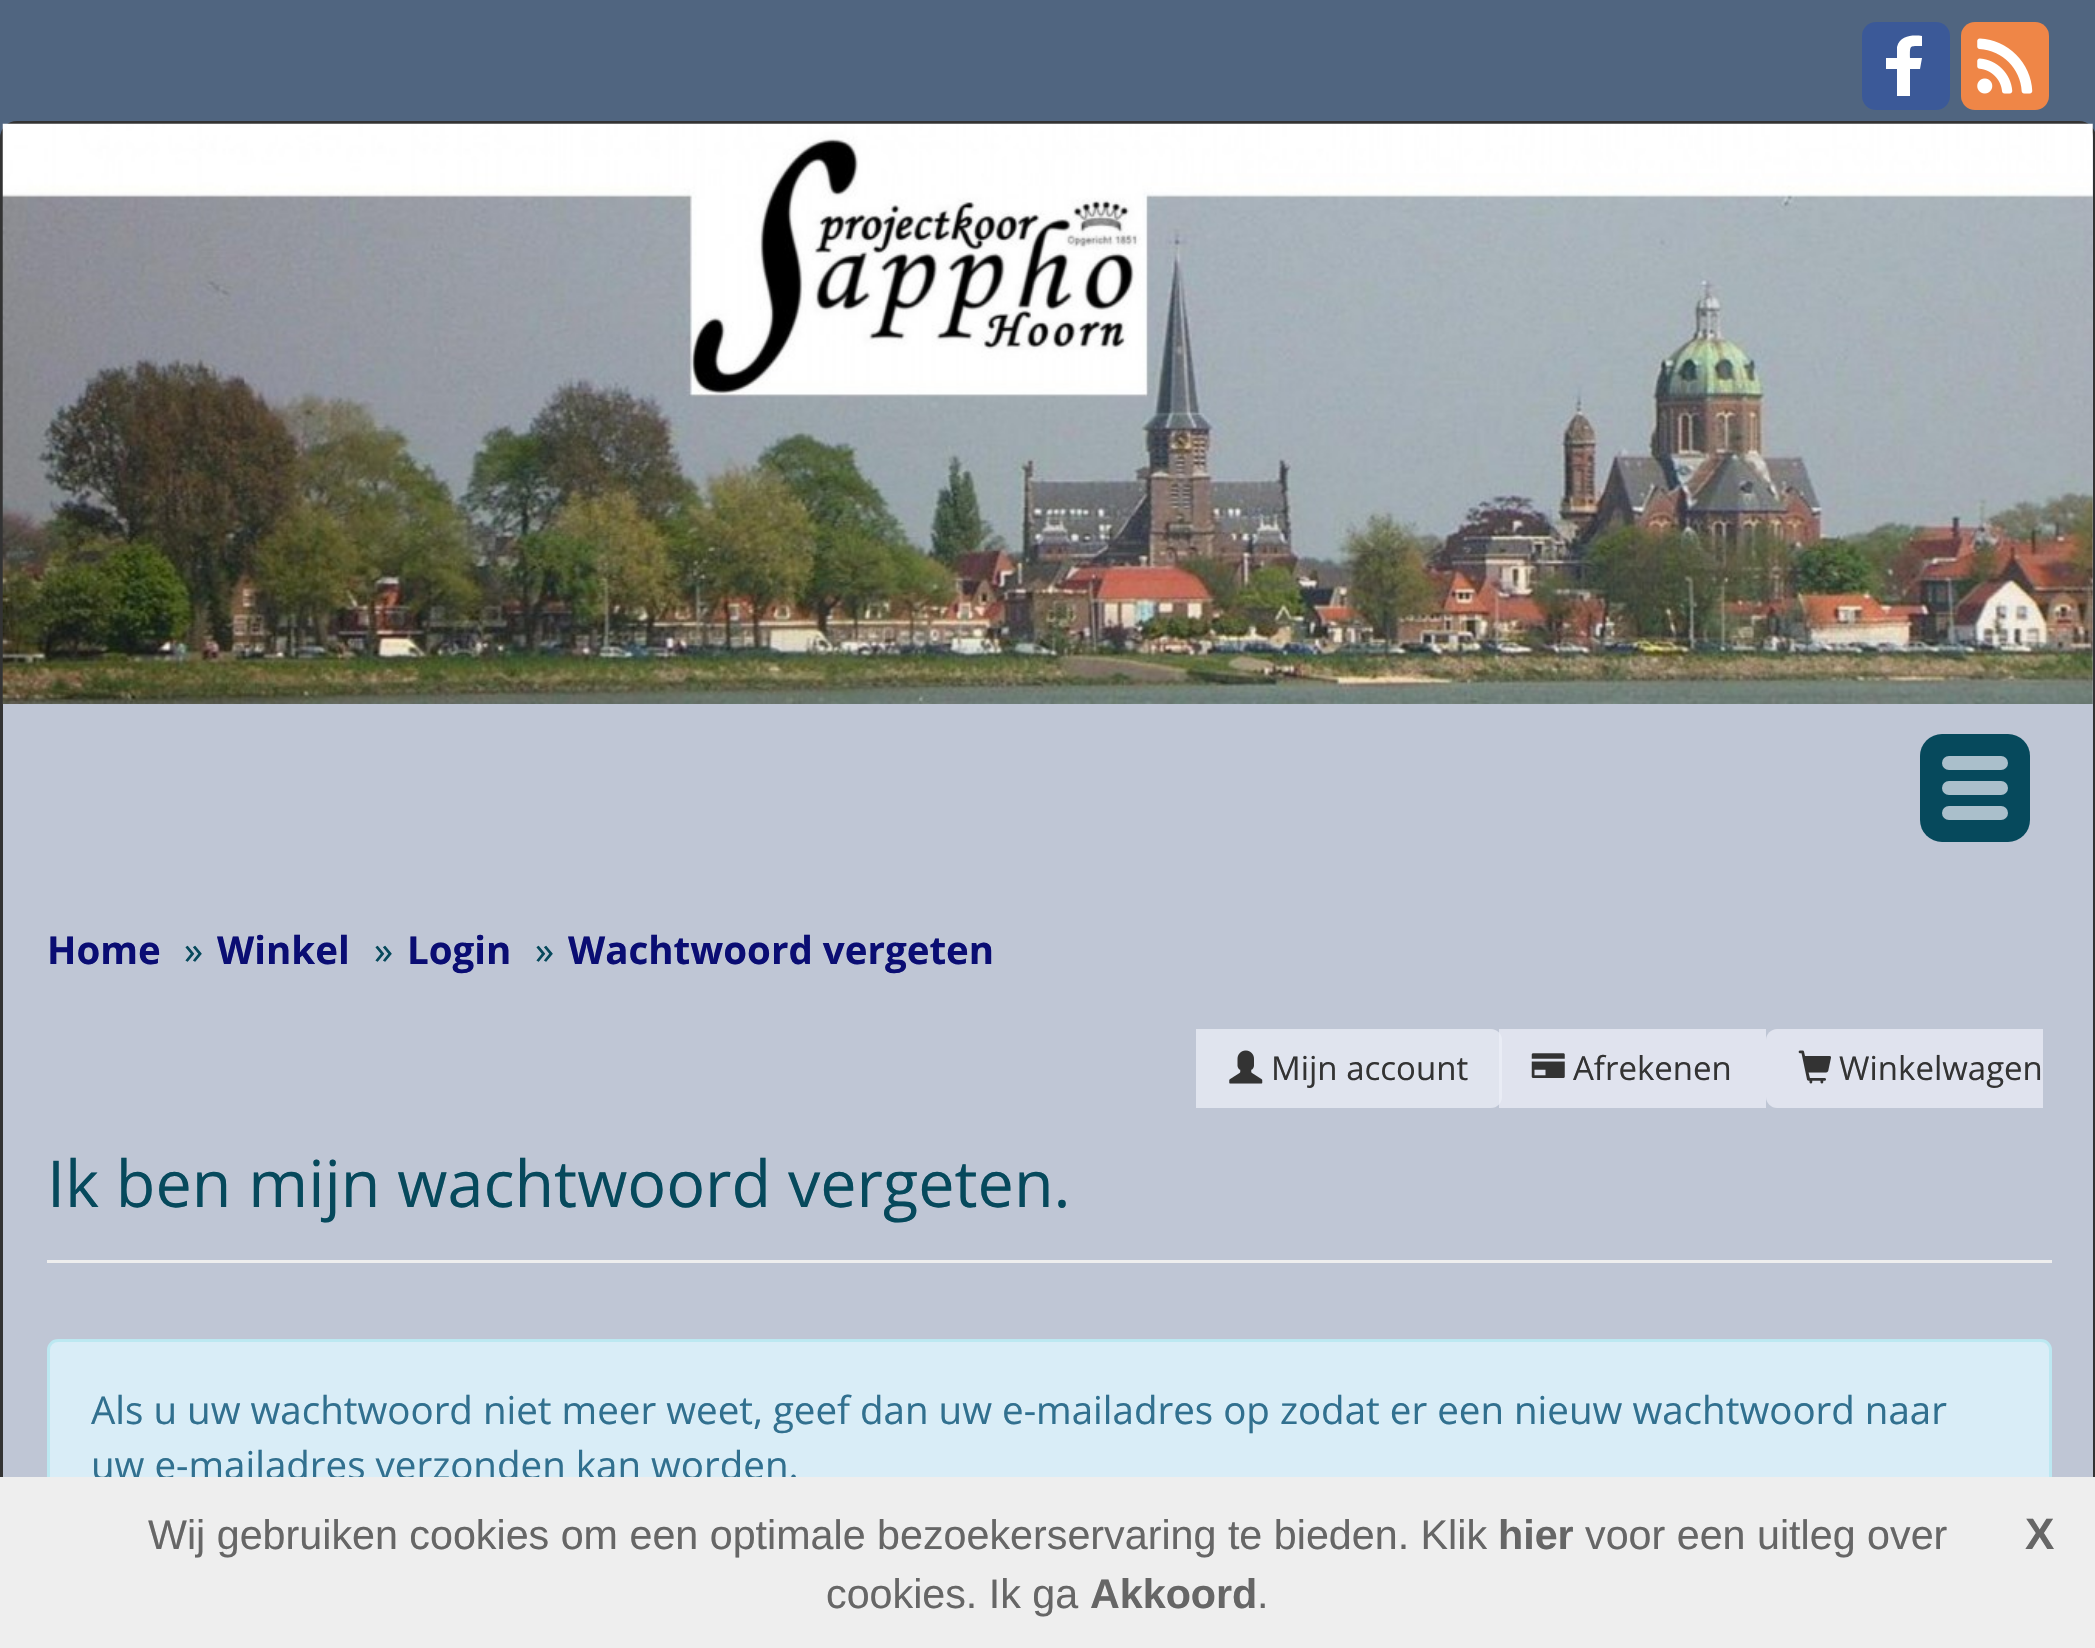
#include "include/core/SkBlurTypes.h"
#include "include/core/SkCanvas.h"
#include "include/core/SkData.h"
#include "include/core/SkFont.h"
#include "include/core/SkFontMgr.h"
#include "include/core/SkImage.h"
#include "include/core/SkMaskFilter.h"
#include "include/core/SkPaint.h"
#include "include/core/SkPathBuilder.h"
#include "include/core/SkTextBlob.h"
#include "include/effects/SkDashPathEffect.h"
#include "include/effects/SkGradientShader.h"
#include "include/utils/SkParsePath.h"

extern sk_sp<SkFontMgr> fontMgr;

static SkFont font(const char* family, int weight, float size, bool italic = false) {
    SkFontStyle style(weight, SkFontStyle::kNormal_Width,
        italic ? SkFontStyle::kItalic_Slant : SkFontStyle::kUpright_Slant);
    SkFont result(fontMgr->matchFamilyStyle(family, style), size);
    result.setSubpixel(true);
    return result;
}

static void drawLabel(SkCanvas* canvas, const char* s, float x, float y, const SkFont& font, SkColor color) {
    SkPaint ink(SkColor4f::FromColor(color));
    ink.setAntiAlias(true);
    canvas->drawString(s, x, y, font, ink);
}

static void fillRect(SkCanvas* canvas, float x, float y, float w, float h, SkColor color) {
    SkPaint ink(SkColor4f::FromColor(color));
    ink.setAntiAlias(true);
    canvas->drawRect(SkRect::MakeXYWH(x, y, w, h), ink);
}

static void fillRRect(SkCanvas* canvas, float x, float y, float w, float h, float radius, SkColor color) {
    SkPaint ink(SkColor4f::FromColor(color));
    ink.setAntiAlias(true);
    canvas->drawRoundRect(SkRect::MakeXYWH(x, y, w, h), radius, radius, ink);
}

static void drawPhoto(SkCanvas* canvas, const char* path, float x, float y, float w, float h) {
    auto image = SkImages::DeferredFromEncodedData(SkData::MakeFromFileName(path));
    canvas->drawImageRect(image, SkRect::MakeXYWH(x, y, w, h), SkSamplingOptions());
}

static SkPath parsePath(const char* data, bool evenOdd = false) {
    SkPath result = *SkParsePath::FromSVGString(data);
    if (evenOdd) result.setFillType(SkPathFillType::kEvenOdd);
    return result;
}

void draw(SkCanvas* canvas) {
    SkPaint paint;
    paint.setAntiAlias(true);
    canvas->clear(0xFF506580);
    fillRRect(canvas, 1862, 22, 88, 88, 14, 0xFF3B5998);
    paint.setColor(0xFFFFFFFF);
    canvas->drawPath(parsePath("M1922 36C1913 35 1900 35 1897 47V58H1886V69H1897V96H1910V69H1920L1922 58H1910C1910 45 1909 46 1922 46Z", true), paint);
    fillRRect(canvas, 1961, 22, 88, 88, 14, 0xFFEF8647);
    drawPhoto(canvas, "assets/img1.png", 1977, 38, 56, 56);
    paint.setColor(0xFFBFC6D5);
    canvas->drawRoundRect(SkRect::MakeXYWH(1.5f, 122.5f, 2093, 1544), 15.5f, 15.5f, paint);
    paint.setStroke(true);
    paint.setStrokeWidth(3);
    paint.setColor(0xFF333333);
    canvas->drawRoundRect(SkRect::MakeXYWH(1.5f, 122.5f, 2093, 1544), 15.5f, 15.5f, paint);
    drawPhoto(canvas, "assets/img2.png", 2, 123, 2091, 581);
    fillRRect(canvas, 1920, 734, 110, 108, 22, 0xFF06495C);
    fillRRect(canvas, 1942, 756, 66, 14, 7, 0xFFAABFCB);
    fillRRect(canvas, 1942, 781, 66, 14, 7, 0xFFAABFCB);
    fillRRect(canvas, 1942, 806, 66, 14, 7, 0xFFAABFCB);
    SkFont font1 = font("Open Sans", 700, 38.5f);
    drawLabel(canvas, "Home", 47, 964, font1, 0xFF0A0D73);
    SkFont font2 = font("Open Sans", 400, 38.5f);
    drawLabel(canvas, "»", 184, 964, font2, 0xFF06495C);
    drawLabel(canvas, "Winkel", 217, 964, font1, 0xFF0A0D73);
    drawLabel(canvas, "»", 374, 964, font2, 0xFF06495C);
    drawLabel(canvas, "Login", 407, 964, font1, 0xFF0A0D73);
    drawLabel(canvas, "»", 535, 964, font2, 0xFF06495C);
    drawLabel(canvas, "Wachtwoord vergeten", 568, 964, font1, 0xFF0A0D73);
    fillRect(canvas, 1499, 1029, 267, 79, 0xFFE0E3EE);
    paint.setStroke(false);
    paint.setColor(0xB5EDEFF8);
    canvas->drawPath(parsePath("M1196 1029H1491C1497 1029 1502 1034 1502 1040V1097C1502 1103 1497 1108 1491 1108H1196Z"), paint);
    drawPhoto(canvas, "assets/img3.png", 1229, 1050, 34, 34);
    SkFont font3 = font("Open Sans", 400, 33);
    drawLabel(canvas, "Mijn account", 1271, 1080, font3, 0xFF333333);
    drawPhoto(canvas, "assets/img4.png", 1531, 1053, 34, 25);
    drawLabel(canvas, "Afrekenen", 1573, 1080, font3, 0xFF333333);
    paint.setColor(0xFFE0E3EE);
    canvas->drawPath(parsePath("M1777 1029H2043V1108H1777C1771 1108 1766 1103 1766 1097V1040C1766 1034 1771 1029 1777 1029Z"), paint);
    drawPhoto(canvas, "assets/img5.png", 1798, 1050, 33, 34);
    drawLabel(canvas, "Winkelwagen", 1839, 1080, font3, 0xFF333333);
    fillRect(canvas, 47, 1260, 2005, 3, 0xFFEEEEEE);
    SkFont font4 = font("Open Sans", 400, 64.7f);
    drawLabel(canvas, "Ik ben mijn wachtwoord vergeten.", 47, 1207, font4, 0xFF06495C);
    paint.setColor(0xFFD9EDF7);
    canvas->drawRoundRect(SkRect::MakeXYWH(48.5f, 1340.5f, 2002, 195), 9.5f, 9.5f, paint);
    paint.setStroke(true);
    paint.setColor(0xFFBCE8F1);
    canvas->drawRoundRect(SkRect::MakeXYWH(48.5f, 1340.5f, 2002, 195), 9.5f, 9.5f, paint);
    drawLabel(canvas, "Als u uw wachtwoord niet meer weet, geef dan uw e-mailadres op zodat er een nieuw wachtwoord naar", 91, 1424, font2, 0xFF31708F);
    drawLabel(canvas, "uw e-mailadres verzonden kan worden.", 91, 1479, font2, 0xFF31708F);
    fillRect(canvas, 0, 1477, 2095, 171, 0xFFEEEEEE);
    SkFont font5 = font("Liberation Sans", 400, 41.25f);
    drawLabel(canvas, "Wij gebruiken cookies om een optimale bezoekerservaring te bieden. Klik", 148, 1549, font5, 0xFF666666);
    SkFont font6 = font("Liberation Sans", 700, 41.25f);
    drawLabel(canvas, "hier", 1498, 1549, font6, 0xFF666666);
    drawLabel(canvas, "voor een uitleg over", 1585, 1549, font5, 0xFF666666);
    drawLabel(canvas, "cookies. Ik ga", 826, 1608, font5, 0xFF666666);
    drawLabel(canvas, "Akkoord", 1090, 1608, font6, 0xFF666666);
    drawLabel(canvas, ".", 1257, 1608, font5, 0xFF666666);
    SkFont font7 = font("Liberation Sans", 700, 44);
    drawLabel(canvas, "X", 2025, 1549, font7, 0xFF666666);
}
